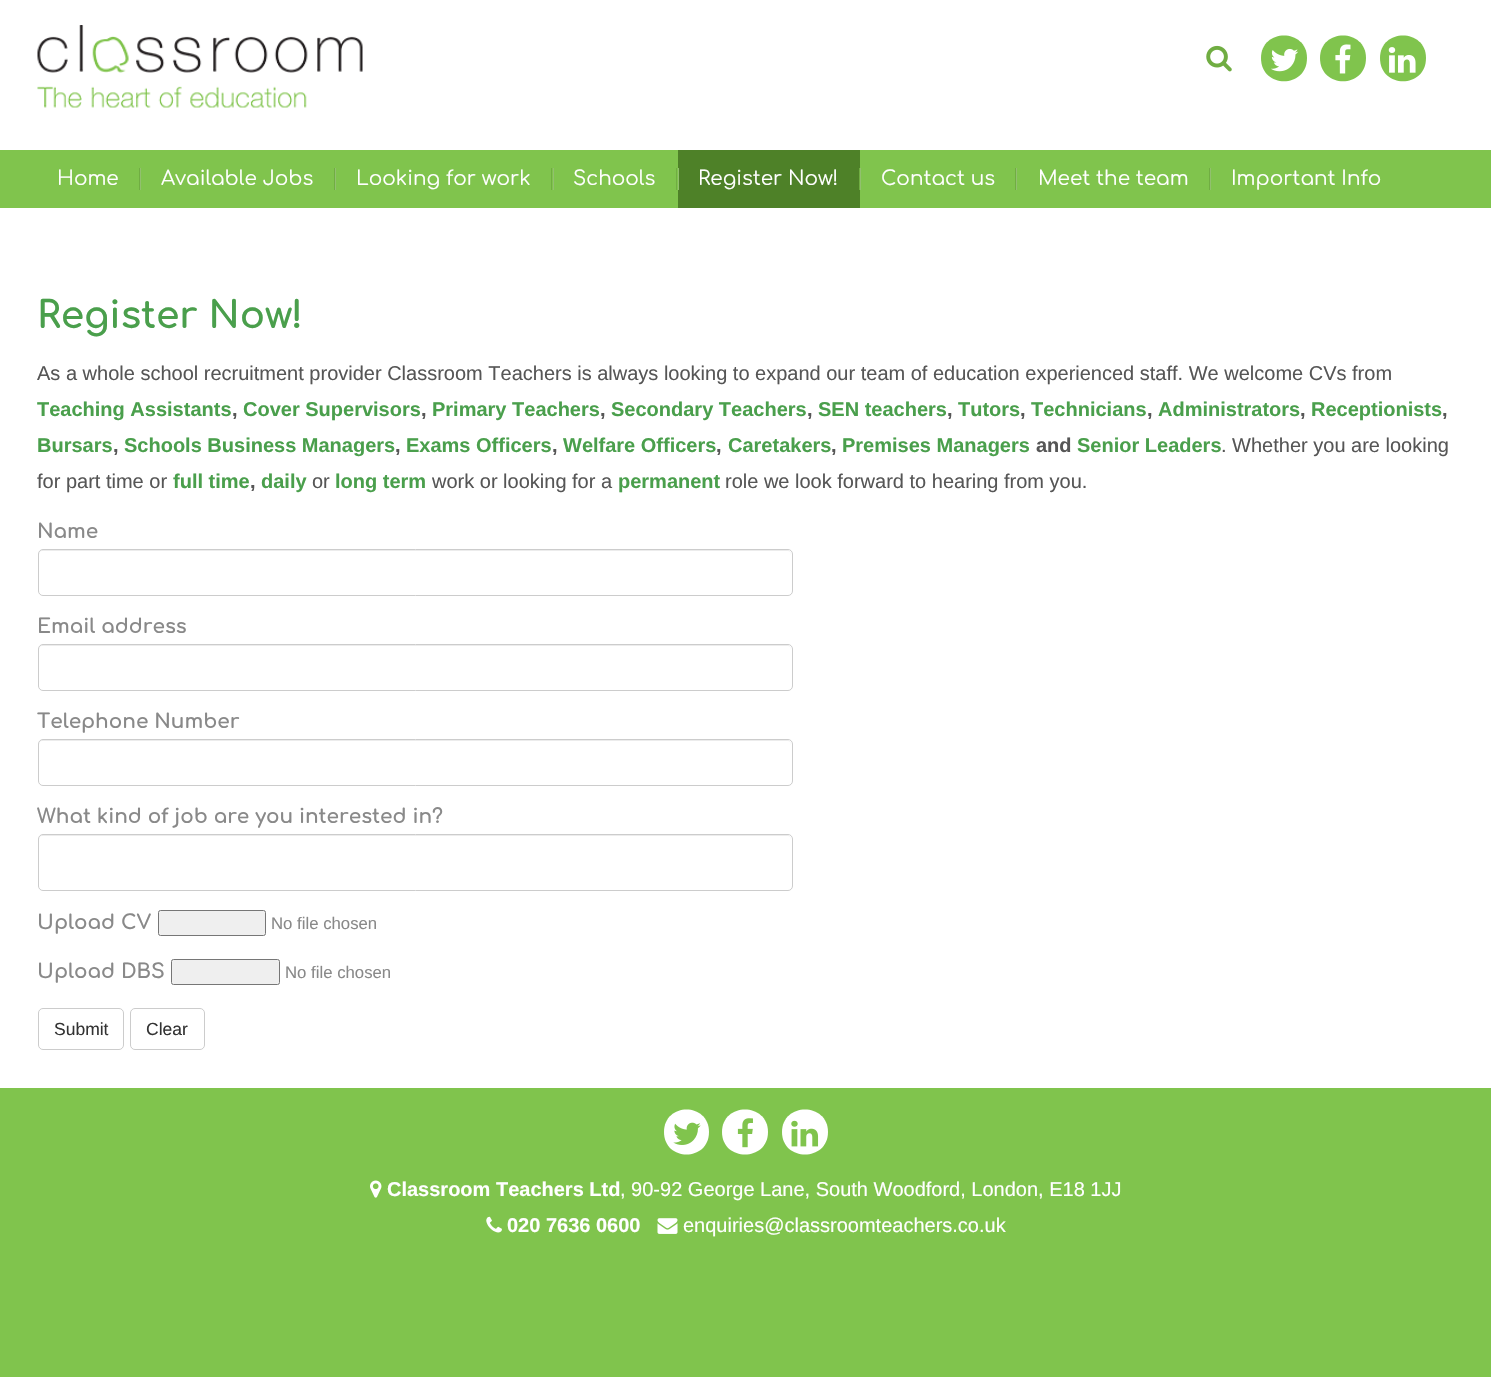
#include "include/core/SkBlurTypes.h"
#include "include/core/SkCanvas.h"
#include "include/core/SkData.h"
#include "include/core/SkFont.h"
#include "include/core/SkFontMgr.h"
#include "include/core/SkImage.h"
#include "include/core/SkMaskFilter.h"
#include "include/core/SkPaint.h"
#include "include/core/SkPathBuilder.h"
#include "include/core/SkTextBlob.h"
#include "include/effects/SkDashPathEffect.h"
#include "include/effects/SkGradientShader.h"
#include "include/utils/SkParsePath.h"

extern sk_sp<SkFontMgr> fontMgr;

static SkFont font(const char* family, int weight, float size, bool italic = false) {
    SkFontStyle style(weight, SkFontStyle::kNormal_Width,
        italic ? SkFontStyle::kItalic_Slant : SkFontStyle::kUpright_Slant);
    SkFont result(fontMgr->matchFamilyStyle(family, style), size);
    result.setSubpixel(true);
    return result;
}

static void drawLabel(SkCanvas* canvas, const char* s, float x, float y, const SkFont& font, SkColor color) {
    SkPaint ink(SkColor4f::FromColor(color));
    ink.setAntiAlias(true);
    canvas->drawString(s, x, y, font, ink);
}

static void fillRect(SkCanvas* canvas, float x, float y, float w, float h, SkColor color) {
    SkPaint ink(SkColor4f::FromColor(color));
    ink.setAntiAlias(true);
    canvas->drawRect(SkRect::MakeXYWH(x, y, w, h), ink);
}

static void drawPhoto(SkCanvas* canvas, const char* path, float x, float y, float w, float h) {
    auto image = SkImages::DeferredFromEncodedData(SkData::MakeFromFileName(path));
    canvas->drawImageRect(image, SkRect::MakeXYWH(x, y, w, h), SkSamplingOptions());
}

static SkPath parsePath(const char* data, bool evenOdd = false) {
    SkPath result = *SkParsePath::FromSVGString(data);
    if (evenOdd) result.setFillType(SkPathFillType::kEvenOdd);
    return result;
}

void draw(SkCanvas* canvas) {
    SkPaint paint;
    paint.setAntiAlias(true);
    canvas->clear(0xFF80C44D);
    fillRect(canvas, 0, 0, 1491, 1088, 0xFFFFFFFF);
    fillRect(canvas, 0, 150, 1491, 58, 0xFF80C44D);
    SkFont font1 = font("Comfortaa", 400, 20);
    drawLabel(canvas, "Home", 57, 185, font1, 0xFFFFFFFF);
    fillRect(canvas, 139, 168, 1, 22, 0xFF70AD42);
    drawLabel(canvas, "Available Jobs", 161, 185, font1, 0xFFFFFFFF);
    fillRect(canvas, 334, 168, 1, 22, 0xFF70AD42);
    fillRect(canvas, 140, 168, 1, 22, 0xFF92C06F);
    drawLabel(canvas, "Looking for work", 356, 185, font1, 0xFFFFFFFF);
    fillRect(canvas, 551, 168, 1, 22, 0xFF70AD42);
    fillRect(canvas, 335, 168, 1, 22, 0xFF92C06F);
    drawLabel(canvas, "Schools", 573, 185, font1, 0xFFFFFFFF);
    fillRect(canvas, 676, 168, 1, 22, 0xFF70AD42);
    fillRect(canvas, 553, 168, 1, 22, 0xFF92C06F);
    fillRect(canvas, 678, 150, 182, 58, 0xFF4E8128);
    drawLabel(canvas, "Register Now!", 698, 185, font1, 0xFFFFFFFF);
    fillRect(canvas, 859, 168, 1, 22, 0xFF70AD42);
    fillRect(canvas, 678, 168, 1, 22, 0xFF92C06F);
    drawLabel(canvas, "Contact us", 881, 185, font1, 0xFFFFFFFF);
    fillRect(canvas, 1015, 168, 1, 22, 0xFF70AD42);
    fillRect(canvas, 860, 168, 1, 22, 0xFF92C06F);
    drawLabel(canvas, "Meet the team", 1038, 185, font1, 0xFFFFFFFF);
    fillRect(canvas, 1209, 168, 1, 22, 0xFF70AD42);
    fillRect(canvas, 1016, 168, 1, 22, 0xFF92C06F);
    drawLabel(canvas, "Important Info", 1231, 185, font1, 0xFFFFFFFF);
    fillRect(canvas, 1210, 168, 1, 22, 0xFF92C06F);
    drawPhoto(canvas, "assets/img1.png", 37, 25, 326, 83);
    drawPhoto(canvas, "assets/img2.png", 1206, 45, 26, 27);
    paint.setColor(0xFF80C44D);
    canvas->drawPath(parsePath("M1307 58C1307 28 1261 28 1261 58C1261 89 1307 89 1307 58Z"), paint);
    drawPhoto(canvas, "assets/img3.png", 1271, 48, 28, 24);
    canvas->drawPath(parsePath("M1366 58C1366 28 1320 28 1320 58C1320 89 1366 89 1366 58Z"), paint);
    drawPhoto(canvas, "assets/img4.png", 1335, 44, 16, 30);
    canvas->drawPath(parsePath("M1426 58C1426 28 1380 28 1380 58C1380 89 1426 89 1426 58Z"), paint);
    drawPhoto(canvas, "assets/img5.png", 1388, 47, 28, 26);
    SkFont font2 = font("Comfortaa", 700, 37.5f);
    drawLabel(canvas, "Register Now!", 37, 328, font2, 0xFF4A9F4C);
    SkFont font3 = font("Liberation Sans", 400, 20);
    drawLabel(canvas, "As a whole school recruitment provider Classroom Teachers is always looking to expand our team of education experienced staff. We welcome CVs from", 37, 380, font3, 0xFF565656);
    SkFont font4 = font("Liberation Sans", 700, 20);
    drawLabel(canvas, "Teaching Assistants", 37, 416, font4, 0xFF4A9F4C);
    drawLabel(canvas, ",", 232, 416, font4, 0xFF565656);
    drawLabel(canvas, "Cover Supervisors", 243, 416, font4, 0xFF4A9F4C);
    drawLabel(canvas, ",", 421, 416, font4, 0xFF565656);
    drawLabel(canvas, "Primary Teachers", 432, 416, font4, 0xFF4A9F4C);
    drawLabel(canvas, ",", 600, 416, font4, 0xFF565656);
    drawLabel(canvas, "Secondary Teachers", 611, 416, font4, 0xFF4A9F4C);
    drawLabel(canvas, ",", 807, 416, font4, 0xFF565656);
    drawLabel(canvas, "SEN teachers", 818, 416, font4, 0xFF4A9F4C);
    drawLabel(canvas, ",", 947, 416, font4, 0xFF565656);
    drawLabel(canvas, "Tutors", 958, 416, font4, 0xFF4A9F4C);
    drawLabel(canvas, ",", 1020, 416, font4, 0xFF565656);
    drawLabel(canvas, "Technicians", 1031, 416, font4, 0xFF4A9F4C);
    drawLabel(canvas, ",", 1147, 416, font4, 0xFF565656);
    drawLabel(canvas, "Administrators", 1158, 416, font4, 0xFF4A9F4C);
    drawLabel(canvas, ",", 1300, 416, font4, 0xFF565656);
    drawLabel(canvas, "Receptionists", 1311, 416, font4, 0xFF4A9F4C);
    drawLabel(canvas, ",", 1442, 416, font4, 0xFF565656);
    drawLabel(canvas, "Bursars", 37, 452, font4, 0xFF4A9F4C);
    drawLabel(canvas, ",", 113, 452, font4, 0xFF565656);
    drawLabel(canvas, "Schools Business Managers", 124, 452, font4, 0xFF4A9F4C);
    drawLabel(canvas, ",", 395, 452, font4, 0xFF565656);
    drawLabel(canvas, "Exams Officers", 406, 452, font4, 0xFF4A9F4C);
    drawLabel(canvas, ",", 552, 452, font4, 0xFF565656);
    drawLabel(canvas, "Welfare Officers", 563, 452, font4, 0xFF4A9F4C);
    drawLabel(canvas, ",", 716, 452, font4, 0xFF565656);
    drawLabel(canvas, "Caretakers", 728, 452, font4, 0xFF4A9F4C);
    drawLabel(canvas, ",", 831, 452, font4, 0xFF565656);
    drawLabel(canvas, "Premises Managers", 842, 452, font4, 0xFF4A9F4C);
    drawLabel(canvas, "and", 1036, 452, font4, 0xFF565656);
    drawLabel(canvas, "Senior Leaders", 1077, 452, font4, 0xFF4A9F4C);
    drawLabel(canvas, ". Whether you are looking", 1221, 452, font3, 0xFF565656);
    drawLabel(canvas, "for part time or", 37, 488, font3, 0xFF565656);
    drawLabel(canvas, "full time", 173, 488, font4, 0xFF4A9F4C);
    drawLabel(canvas, ",", 250, 488, font4, 0xFF565656);
    drawLabel(canvas, "daily", 261, 488, font4, 0xFF4A9F4C);
    drawLabel(canvas, "or", 312, 488, font3, 0xFF565656);
    drawLabel(canvas, "long term", 335, 488, font4, 0xFF4A9F4C);
    drawLabel(canvas, "work or looking for a", 432, 488, font3, 0xFF565656);
    drawLabel(canvas, "permanent", 618, 488, font4, 0xFF4A9F4C);
    drawLabel(canvas, "role we look forward to hearing from you.", 725, 488, font3, 0xFF565656);
    SkFont font5 = font("Comfortaa", 700, 20);
    drawLabel(canvas, "Name", 37, 538, font5, 0xFF898989);
    paint.setColor(0xFFECECEC);
    canvas->drawPath(parsePath("M42 551H788C790 551 791 553 791 555V554C791 552 789 550 787 550H43C41 550 39 552 39 554V555C39 553 40 551 42 551Z"), paint);
    paint.setStroke(true);
    paint.setStrokeWidth(1);
    paint.setColor(0xFFCCCCCC);
    canvas->drawRoundRect(SkRect::MakeXYWH(38.5f, 549.5f, 754, 46), 4.5f, 4.5f, paint);
    drawLabel(canvas, "Email address", 37, 633, font5, 0xFF898989);
    paint.setStroke(false);
    paint.setColor(0xFFECECEC);
    canvas->drawPath(parsePath("M42 646H788C790 646 791 648 791 650V649C791 647 789 645 787 645H43C41 645 39 647 39 649V650C39 648 40 646 42 646Z"), paint);
    paint.setStroke(true);
    paint.setColor(0xFFCCCCCC);
    canvas->drawRoundRect(SkRect::MakeXYWH(38.5f, 644.5f, 754, 46), 4.5f, 4.5f, paint);
    drawLabel(canvas, "Telephone Number", 37, 728, font5, 0xFF898989);
    paint.setStroke(false);
    paint.setColor(0xFFECECEC);
    canvas->drawPath(parsePath("M42 741H788C790 741 791 743 791 745V744C791 742 789 740 787 740H43C41 740 39 742 39 744V745C39 743 40 741 42 741Z"), paint);
    paint.setStroke(true);
    paint.setColor(0xFFCCCCCC);
    canvas->drawRoundRect(SkRect::MakeXYWH(38.5f, 739.5f, 754, 46), 4.5f, 4.5f, paint);
    drawLabel(canvas, "What kind of job are you interested in?", 37, 823, font5, 0xFF898989);
    paint.setStroke(false);
    paint.setColor(0xFFECECEC);
    canvas->drawPath(parsePath("M42 836H788C790 836 791 838 791 840V839C791 837 789 835 787 835H43C41 835 39 837 39 839V840C39 838 40 836 42 836Z"), paint);
    paint.setStroke(true);
    paint.setColor(0xFFCCCCCC);
    canvas->drawRoundRect(SkRect::MakeXYWH(38.5f, 834.5f, 754, 56), 4.5f, 4.5f, paint);
    drawLabel(canvas, "Upload CV", 37, 929, font5, 0xFF898989);
    paint.setStroke(false);
    paint.setColor(0xFFEFEFEF);
    canvas->drawRoundRect(SkRect::MakeXYWH(158.5f, 910.5f, 107, 25), 2, 2, paint);
    paint.setStroke(true);
    paint.setColor(0xFF767676);
    canvas->drawRoundRect(SkRect::MakeXYWH(158.5f, 910.5f, 107, 25), 2, 2, paint);
    SkFont font6 = font("Liberation Sans", 400, 16.75f);
    drawLabel(canvas, "No file chosen", 271, 929, font6, 0xFF898989);
    drawLabel(canvas, "Upload DBS", 37, 978, font5, 0xFF898989);
    paint.setStroke(false);
    paint.setColor(0xFFEFEFEF);
    canvas->drawRoundRect(SkRect::MakeXYWH(171.5f, 959.5f, 108, 25), 2, 2, paint);
    paint.setStroke(true);
    paint.setColor(0xFF767676);
    canvas->drawRoundRect(SkRect::MakeXYWH(171.5f, 959.5f, 108, 25), 2, 2, paint);
    drawLabel(canvas, "No file chosen", 285, 978, font6, 0xFF898989);
    paint.setColor(0xFFCCCCCC);
    canvas->drawRoundRect(SkRect::MakeXYWH(38.5f, 1008.5f, 85, 41), 4.5f, 4.5f, paint);
    SkFont font7 = font("Liberation Sans", 400, 17.5f);
    drawLabel(canvas, "Submit", 54, 1035, font7, 0xFF333333);
    canvas->drawRoundRect(SkRect::MakeXYWH(130.5f, 1008.5f, 74, 41), 4.5f, 4.5f, paint);
    drawLabel(canvas, "Clear", 146, 1035, font7, 0xFF333333);
    paint.setStroke(false);
    paint.setColor(0xFFFFFFFF);
    canvas->drawPath(parsePath("M709 1132C709 1102 664 1102 664 1132C664 1162 709 1162 709 1132Z"), paint);
    drawPhoto(canvas, "assets/img6.png", 673, 1122, 28, 23);
    canvas->drawPath(parsePath("M768 1132C768 1102 722 1102 722 1132C722 1162 768 1162 768 1132Z"), paint);
    drawPhoto(canvas, "assets/img7.png", 737, 1118, 16, 30);
    canvas->drawPath(parsePath("M828 1132C828 1102 782 1102 782 1132C782 1162 828 1162 828 1132Z"), paint);
    drawPhoto(canvas, "assets/img8.png", 791, 1120, 28, 27);
    drawPhoto(canvas, "assets/img9.png", 370, 1180, 12, 18);
    drawLabel(canvas, "Classroom Teachers Ltd", 387, 1196, font4, 0xFFFFFFFF);
    drawLabel(canvas, ", 90-92 George Lane, South Woodford, London, E18 1JJ", 620, 1196, font3, 0xFFFFFFFF);
    drawPhoto(canvas, "assets/img10.png", 486, 1216, 16, 17);
    drawLabel(canvas, "020 7636 0600", 507, 1232, font4, 0xFFFFFFFF);
    drawPhoto(canvas, "assets/img11.png", 657, 1218, 21, 16);
    drawLabel(canvas, "enquiries@classroomteachers.co.uk", 683, 1232, font3, 0xFFFFFFFF);
}
